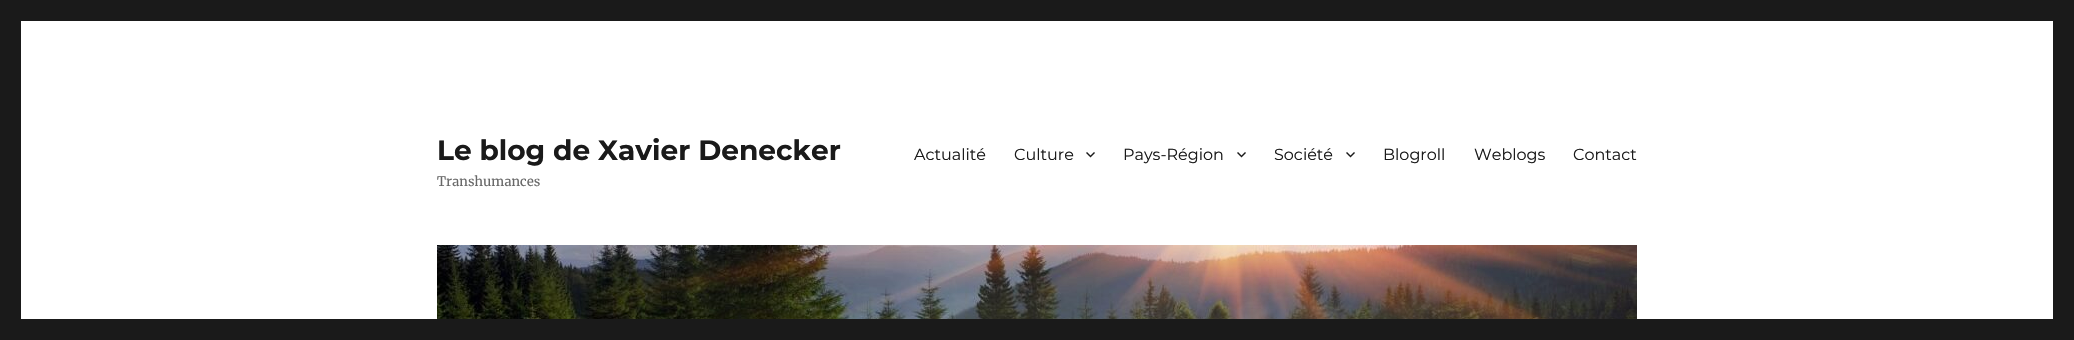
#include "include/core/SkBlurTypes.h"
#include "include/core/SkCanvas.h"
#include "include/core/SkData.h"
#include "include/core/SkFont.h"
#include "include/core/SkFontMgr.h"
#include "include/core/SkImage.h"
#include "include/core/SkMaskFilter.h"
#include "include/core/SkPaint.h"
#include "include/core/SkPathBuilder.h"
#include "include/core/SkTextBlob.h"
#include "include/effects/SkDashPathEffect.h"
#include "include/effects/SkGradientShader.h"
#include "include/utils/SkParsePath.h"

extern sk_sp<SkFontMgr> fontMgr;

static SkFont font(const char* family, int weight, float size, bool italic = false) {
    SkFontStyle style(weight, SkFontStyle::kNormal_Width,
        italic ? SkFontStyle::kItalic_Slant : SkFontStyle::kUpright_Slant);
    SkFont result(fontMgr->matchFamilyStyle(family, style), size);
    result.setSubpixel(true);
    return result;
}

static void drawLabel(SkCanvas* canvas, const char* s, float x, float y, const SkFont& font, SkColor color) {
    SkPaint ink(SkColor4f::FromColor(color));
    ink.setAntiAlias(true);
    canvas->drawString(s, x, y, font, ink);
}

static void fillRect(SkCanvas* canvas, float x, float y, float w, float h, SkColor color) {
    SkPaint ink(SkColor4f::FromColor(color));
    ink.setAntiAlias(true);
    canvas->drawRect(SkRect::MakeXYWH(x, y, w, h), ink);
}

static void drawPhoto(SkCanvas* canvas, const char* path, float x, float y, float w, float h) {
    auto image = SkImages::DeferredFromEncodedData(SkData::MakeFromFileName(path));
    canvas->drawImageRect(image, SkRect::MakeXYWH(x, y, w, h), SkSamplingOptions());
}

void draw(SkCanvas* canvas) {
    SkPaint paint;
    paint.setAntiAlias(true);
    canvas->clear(0xFF1A1A1A);
    fillRect(canvas, 21, 21, 2032, 298, 0xFFFFFFFF);
    SkFont font1 = font("Montserrat", 100, 28);
    drawLabel(canvas, "Le blog de Xavier Denecker", 437, 160, font1, 0xFF1A1A1A);
    SkFont font2 = font("Merriweather", 400, 13);
    drawLabel(canvas, "Transhumances", 437, 186, font2, 0xFF686868);
    SkFont font3 = font("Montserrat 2", 100, 16);
    drawLabel(canvas, "Actualité", 914, 160, font3, 0xFF1A1A1A);
    drawLabel(canvas, "Culture", 1014, 160, font3, 0xFF1A1A1A);
    drawPhoto(canvas, "assets/img1.png", 1086, 152, 9, 6);
    drawLabel(canvas, "Pays-Région", 1123, 160, font3, 0xFF1A1A1A);
    drawPhoto(canvas, "assets/img1.png", 1237, 152, 9, 6);
    drawLabel(canvas, "Société", 1274, 160, font3, 0xFF1A1A1A);
    drawPhoto(canvas, "assets/img1.png", 1346, 152, 9, 6);
    drawLabel(canvas, "Blogroll", 1383, 160, font3, 0xFF1A1A1A);
    drawLabel(canvas, "Weblogs", 1474, 160, font3, 0xFF1A1A1A);
    drawLabel(canvas, "Contact", 1573, 160, font3, 0xFF1A1A1A);
    drawPhoto(canvas, "assets/img2.png", 437, 245, 1200, 74);
}
